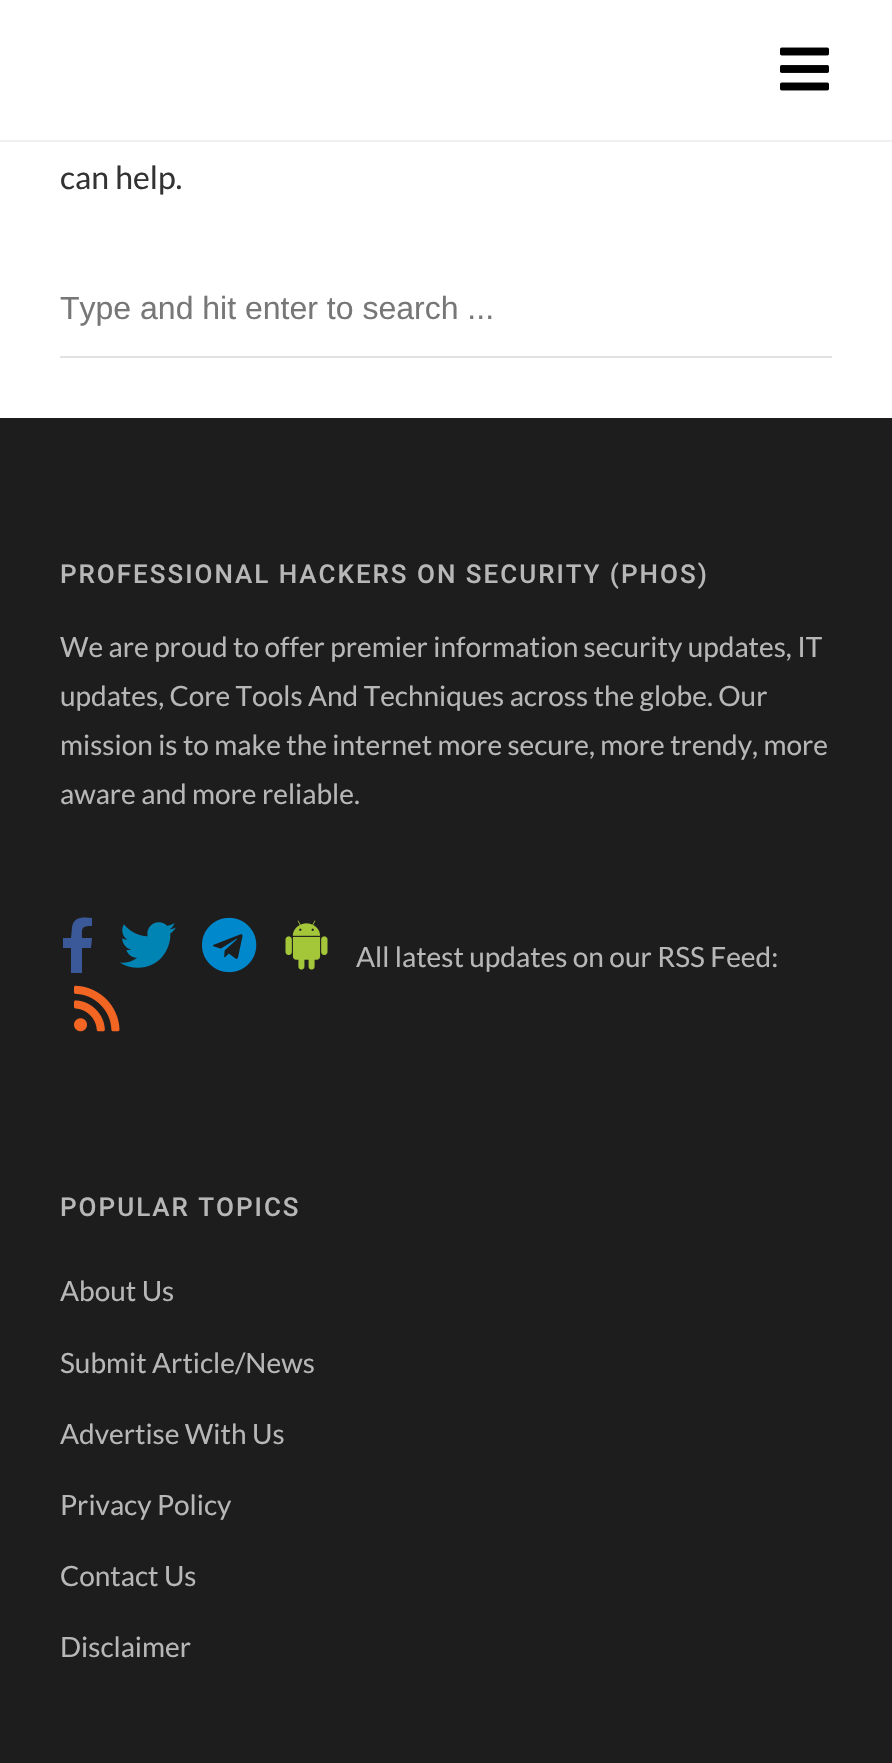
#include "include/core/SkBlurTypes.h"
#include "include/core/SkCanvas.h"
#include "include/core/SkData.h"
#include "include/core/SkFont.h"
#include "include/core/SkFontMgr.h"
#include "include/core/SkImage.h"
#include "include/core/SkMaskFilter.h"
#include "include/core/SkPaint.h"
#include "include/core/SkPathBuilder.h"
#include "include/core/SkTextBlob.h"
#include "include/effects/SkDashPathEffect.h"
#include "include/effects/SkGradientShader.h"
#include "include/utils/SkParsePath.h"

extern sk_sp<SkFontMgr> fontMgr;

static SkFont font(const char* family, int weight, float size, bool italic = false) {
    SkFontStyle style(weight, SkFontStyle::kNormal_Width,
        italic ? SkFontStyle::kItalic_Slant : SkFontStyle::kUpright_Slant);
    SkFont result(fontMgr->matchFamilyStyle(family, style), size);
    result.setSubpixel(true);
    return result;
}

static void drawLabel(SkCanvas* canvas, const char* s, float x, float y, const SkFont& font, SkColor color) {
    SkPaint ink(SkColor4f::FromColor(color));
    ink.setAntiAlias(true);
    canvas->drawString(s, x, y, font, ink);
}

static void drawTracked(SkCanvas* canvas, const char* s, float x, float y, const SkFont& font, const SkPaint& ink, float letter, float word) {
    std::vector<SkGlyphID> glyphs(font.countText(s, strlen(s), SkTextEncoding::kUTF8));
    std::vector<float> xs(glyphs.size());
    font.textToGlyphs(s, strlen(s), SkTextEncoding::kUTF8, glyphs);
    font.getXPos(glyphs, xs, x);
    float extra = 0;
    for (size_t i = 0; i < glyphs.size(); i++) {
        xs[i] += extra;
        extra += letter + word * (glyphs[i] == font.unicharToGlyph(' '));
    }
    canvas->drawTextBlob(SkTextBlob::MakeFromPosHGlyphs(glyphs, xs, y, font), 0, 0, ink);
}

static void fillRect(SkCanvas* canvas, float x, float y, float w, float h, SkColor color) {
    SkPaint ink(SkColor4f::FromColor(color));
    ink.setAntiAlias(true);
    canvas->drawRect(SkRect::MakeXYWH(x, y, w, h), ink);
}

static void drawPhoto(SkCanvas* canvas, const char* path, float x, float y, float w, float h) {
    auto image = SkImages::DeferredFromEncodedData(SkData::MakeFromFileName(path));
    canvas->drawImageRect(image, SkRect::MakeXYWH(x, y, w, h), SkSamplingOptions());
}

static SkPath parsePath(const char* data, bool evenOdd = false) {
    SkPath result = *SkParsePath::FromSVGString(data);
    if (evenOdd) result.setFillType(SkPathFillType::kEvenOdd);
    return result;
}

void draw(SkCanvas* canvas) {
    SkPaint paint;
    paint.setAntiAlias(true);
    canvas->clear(0xFFFFFFFF);
    fillRect(canvas, 0, 140, 892, 2, 0xFFF0F0F0);
    drawPhoto(canvas, "assets/img1.png", 780, 47, 49, 44);
    SkFont font1 = font("Lato", 400, 32);
    drawLabel(canvas, "can help.", 60, 189, font1, 0xFF333333);
    fillRect(canvas, 60, 356, 772, 2, 0xFFE2E2E2);
    SkFont font2 = font("Liberation Sans", 400, 32);
    drawLabel(canvas, "Type and hit enter to search ...", 60, 319, font2, 0xFF777777);
    fillRect(canvas, 0, 418, 892, 1345, 0xFF1D1D1D);
    SkFont font3 = font("Roboto", 500, 26);
    paint.setColor(0xFFB7B7B7);
    drawTracked(canvas, "PROFESSIONAL HACKERS ON SECURITY (PHOS)", 60, 583, font3, paint, 2, 0);
    SkFont font4 = font("Lato", 400, 28);
    drawLabel(canvas, "We are proud to offer premier information security updates, IT", 60, 657, font4, 0xFFB7B7B7);
    drawLabel(canvas, "updates, Core Tools And Techniques across the globe. Our", 60, 706, font4, 0xFFB7B7B7);
    drawLabel(canvas, "mission is to make the internet more secure, more trendy, more", 60, 755, font4, 0xFFB7B7B7);
    drawLabel(canvas, "aware and more reliable.", 60, 804, font4, 0xFFB7B7B7);
    paint.setColor(0xFF3B5998);
    canvas->drawPath(parsePath("M91 948H82V973H71V948H63V938H71L72 928C73 916 84 917 92 918V926C81 926 82 928 82 938H92Z"), paint);
    drawPhoto(canvas, "assets/img2.png", 120, 922, 56, 46);
    drawPhoto(canvas, "assets/img3.png", 202, 917, 55, 56);
    drawPhoto(canvas, "assets/img4.png", 285, 920, 43, 50);
    drawLabel(canvas, "All latest updates on our RSS Feed:", 356, 967, font4, 0xFFB7B7B7);
    drawPhoto(canvas, "assets/img5.png", 74, 985, 46, 47);
    paint.setColor(0xFFB7B7B7);
    drawTracked(canvas, "POPULAR TOPICS", 60, 1216, font3, paint, 2, 0);
    drawLabel(canvas, "About Us", 60, 1301, font4, 0xFFB7B7B7);
    drawLabel(canvas, "Submit Article/News", 60, 1373, font4, 0xFFB7B7B7);
    drawLabel(canvas, "Advertise With Us", 60, 1444, font4, 0xFFB7B7B7);
    drawLabel(canvas, "Privacy Policy", 60, 1515, font4, 0xFFB7B7B7);
    drawLabel(canvas, "Contact Us", 60, 1586, font4, 0xFFB7B7B7);
    drawLabel(canvas, "Disclaimer", 60, 1657, font4, 0xFFB7B7B7);
}
